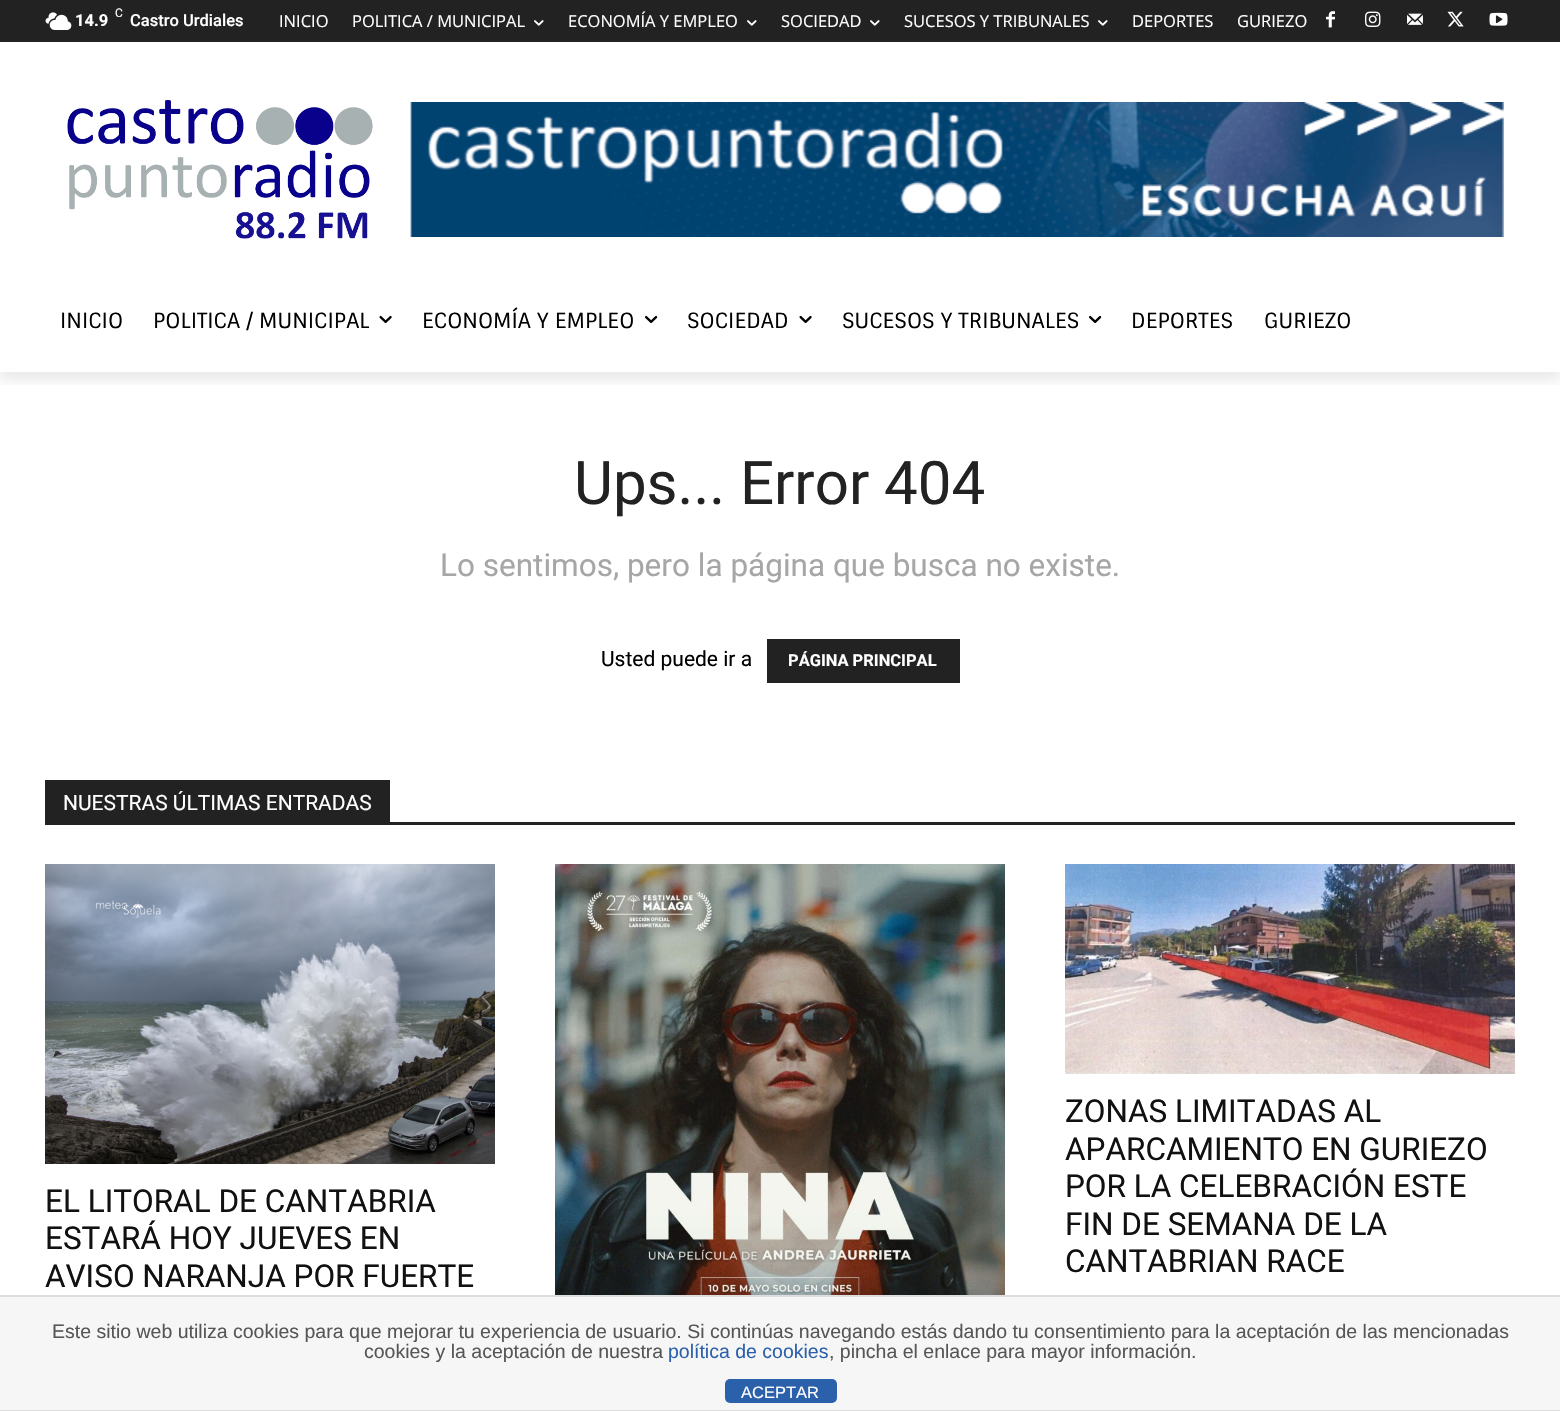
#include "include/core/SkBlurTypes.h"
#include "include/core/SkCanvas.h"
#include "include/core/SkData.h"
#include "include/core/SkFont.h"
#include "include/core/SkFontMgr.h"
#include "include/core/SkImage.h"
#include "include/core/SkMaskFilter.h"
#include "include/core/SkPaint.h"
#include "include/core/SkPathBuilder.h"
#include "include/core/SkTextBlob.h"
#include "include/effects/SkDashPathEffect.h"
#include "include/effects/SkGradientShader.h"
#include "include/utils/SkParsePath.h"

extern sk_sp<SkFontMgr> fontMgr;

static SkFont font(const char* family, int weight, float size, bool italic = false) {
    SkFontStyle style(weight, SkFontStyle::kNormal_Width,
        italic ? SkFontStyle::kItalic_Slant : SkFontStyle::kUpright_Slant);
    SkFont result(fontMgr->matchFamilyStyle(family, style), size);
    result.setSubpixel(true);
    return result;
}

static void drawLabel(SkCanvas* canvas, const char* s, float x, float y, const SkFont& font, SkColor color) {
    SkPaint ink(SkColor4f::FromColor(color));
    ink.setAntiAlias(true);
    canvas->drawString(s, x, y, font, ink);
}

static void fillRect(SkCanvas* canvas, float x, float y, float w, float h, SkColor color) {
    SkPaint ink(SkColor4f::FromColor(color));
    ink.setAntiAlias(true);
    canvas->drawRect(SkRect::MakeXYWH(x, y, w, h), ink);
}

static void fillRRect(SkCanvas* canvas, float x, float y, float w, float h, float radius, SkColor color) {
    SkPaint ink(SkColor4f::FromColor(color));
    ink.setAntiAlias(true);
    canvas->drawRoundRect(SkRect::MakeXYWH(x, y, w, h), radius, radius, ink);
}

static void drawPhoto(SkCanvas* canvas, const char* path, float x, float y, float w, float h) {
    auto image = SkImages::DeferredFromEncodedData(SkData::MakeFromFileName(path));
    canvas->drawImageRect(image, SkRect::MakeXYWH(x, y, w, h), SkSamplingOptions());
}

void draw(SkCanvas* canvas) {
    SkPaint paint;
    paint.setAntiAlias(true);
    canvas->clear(0xFFFFFFFF);
    fillRect(canvas, 0, 0, 1560, 42, 0xFF222222);
    drawPhoto(canvas, "assets/img1.png", 45, 12, 27, 18);
    drawPhoto(canvas, "assets/img3.png", 1326, 11, 9, 17);
    drawPhoto(canvas, "assets/img4.png", 1365, 11, 16, 16);
    drawPhoto(canvas, "assets/img5.png", 1407, 13, 16, 12);
    drawPhoto(canvas, "assets/img6.png", 1447, 11, 17, 16);
    drawPhoto(canvas, "assets/img7.png", 1489, 12, 19, 14);
    drawPhoto(canvas, "assets/img8.png", 67, 100, 306, 139);
    drawPhoto(canvas, "assets/img9.png", 410, 102, 1094, 135);
    canvas->save();
    canvas->clipRect(SkRect::MakeXYWH(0, 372, 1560, 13));
    paint.setColor(0x14000000);
    paint.setMaskFilter(SkMaskFilter::MakeBlur(kNormal_SkBlurStyle, 6));
    canvas->drawRect(SkRect::MakeXYWH(0, 9, 1560, 372), paint);
    paint.setMaskFilter(nullptr);
    canvas->restore();
    SkFont font1 = font("Roboto", 400, 12);
    drawLabel(canvas, "C", 115, 17, font1, 0xFFFFFFFF);
    SkFont font2 = font("Roboto", 700, 16.5f);
    drawLabel(canvas, "14.9", 75, 26, font2, 0xFFFFFFFF);
    SkFont font3 = font("Roboto", 500, 16.5f);
    drawLabel(canvas, "Castro Urdiales", 130, 26, font3, 0xFFFFFFFF);
    SkFont font4 = font("Open Sans", 400, 16.5f);
    drawLabel(canvas, "INICIO", 279, 27, font4, 0xFFFFFFFF);
    drawLabel(canvas, "POLITICA / MUNICIPAL", 352, 27, font4, 0xFFFFFFFF);
    drawPhoto(canvas, "assets/img2.png", 534, 20, 10, 6);
    drawLabel(canvas, "ECONOMÍA Y EMPLEO", 568, 27, font4, 0xFFFFFFFF);
    drawPhoto(canvas, "assets/img2.png", 747, 20, 10, 6);
    drawLabel(canvas, "SOCIEDAD", 781, 27, font4, 0xFFFFFFFF);
    drawPhoto(canvas, "assets/img2.png", 870, 20, 10, 6);
    drawLabel(canvas, "SUCESOS Y TRIBUNALES", 904, 27, font4, 0xFFFFFFFF);
    drawPhoto(canvas, "assets/img2.png", 1098, 20, 10, 6);
    drawLabel(canvas, "DEPORTES", 1132, 27, font4, 0xFFFFFFFF);
    drawLabel(canvas, "GURIEZO", 1237, 27, font4, 0xFFFFFFFF);
    SkFont font5 = font("Sintony", 400, 21);
    drawLabel(canvas, "INICIO", 60, 328, font5, 0xFF000000);
    drawLabel(canvas, "POLITICA / MUNICIPAL", 153, 328, font5, 0xFF000000);
    drawPhoto(canvas, "assets/img10.png", 379, 315, 13, 8);
    drawLabel(canvas, "ECONOMÍA Y EMPLEO", 422, 328, font5, 0xFF000000);
    drawPhoto(canvas, "assets/img11.png", 645, 315, 13, 8);
    drawLabel(canvas, "SOCIEDAD", 687, 328, font5, 0xFF000000);
    drawPhoto(canvas, "assets/img10.png", 799, 315, 13, 8);
    drawLabel(canvas, "SUCESOS Y TRIBUNALES", 842, 328, font5, 0xFF000000);
    drawPhoto(canvas, "assets/img11.png", 1089, 315, 13, 8);
    drawLabel(canvas, "DEPORTES", 1131, 328, font5, 0xFF000000);
    drawLabel(canvas, "GURIEZO", 1264, 328, font5, 0xFF000000);
    SkFont font6 = font("Roboto", 400, 60);
    drawLabel(canvas, "Ups... Error 404", 574, 504, font6, 0xFF222222);
    SkFont font7 = font("Roboto", 400, 31.5f);
    drawLabel(canvas, "Lo sentimos, pero la página que busca no existe.", 440, 576, font7, 0xFFA6A6A6);
    SkFont font8 = font("Roboto", 400, 21);
    drawLabel(canvas, "Usted puede ir a", 601, 666, font8, 0xFF000000);
    fillRect(canvas, 767, 639, 193, 44, 0xFF222222);
    drawLabel(canvas, "PÁGINA PRINCIPAL", 788, 666, font2, 0xFFFFFFFF);
    fillRect(canvas, 45, 822, 1470, 3, 0xFF222222);
    fillRect(canvas, 45, 780, 345, 42, 0xFF222222);
    drawLabel(canvas, "NUESTRAS ÚLTIMAS ENTRADAS", 63, 810, font8, 0xFFFFFFFF);
    drawPhoto(canvas, "assets/img12.png", 45, 864, 450, 300);
    drawLabel(canvas, "EL LITORAL DE CANTABRIA", 45, 1212, font7, 0xFF111111);
    drawLabel(canvas, "ESTARÁ HOY JUEVES EN", 45, 1249, font7, 0xFF111111);
    drawLabel(canvas, "AVISO NARANJA POR FUERTE", 45, 1287, font7, 0xFF111111);
    drawPhoto(canvas, "assets/img13.png", 555, 864, 450, 431);
    drawPhoto(canvas, "assets/img14.png", 1065, 864, 450, 210);
    drawLabel(canvas, "ZONAS LIMITADAS AL", 1065, 1122, font7, 0xFF111111);
    drawLabel(canvas, "APARCAMIENTO EN GURIEZO", 1065, 1160, font7, 0xFF111111);
    drawLabel(canvas, "POR LA CELEBRACIÓN ESTE", 1065, 1197, font7, 0xFF111111);
    drawLabel(canvas, "FIN DE SEMANA DE LA", 1065, 1235, font7, 0xFF111111);
    drawLabel(canvas, "CANTABRIAN RACE", 1065, 1272, font7, 0xFF111111);
    fillRect(canvas, 0, 1297, 1560, 113, 0xFFF6F6F6);
    fillRect(canvas, 0, 1295, 1560, 2, 0xFFDDDDDD);
    fillRect(canvas, 0, 1410, 1560, 1, 0xFFDDDDDD);
    SkFont font9 = font("Liberation Sans", 400, 19.5f);
    drawLabel(canvas, "Este sitio web utiliza cookies para que mejorar tu experiencia de usuario. Si continúas navegando estás dando tu consentimiento para la aceptación de las mencionadas", 52, 1338, font9, 0xFF565656);
    drawLabel(canvas, "cookies y la aceptación de nuestra", 364, 1358, font9, 0xFF565656);
    drawLabel(canvas, "política de cookies", 668, 1358, font9, 0xFF2B60AB);
    drawLabel(canvas, ", pincha el enlace para mayor información.", 829, 1358, font9, 0xFF565656);
    fillRRect(canvas, 725, 1379, 112, 24, 5, 0xFF2B60AB);
    SkFont font10 = font("Liberation Sans", 400, 16.5f);
    drawLabel(canvas, "ACEPTAR", 741, 1398, font10, 0xFFFFFFFF);
}
